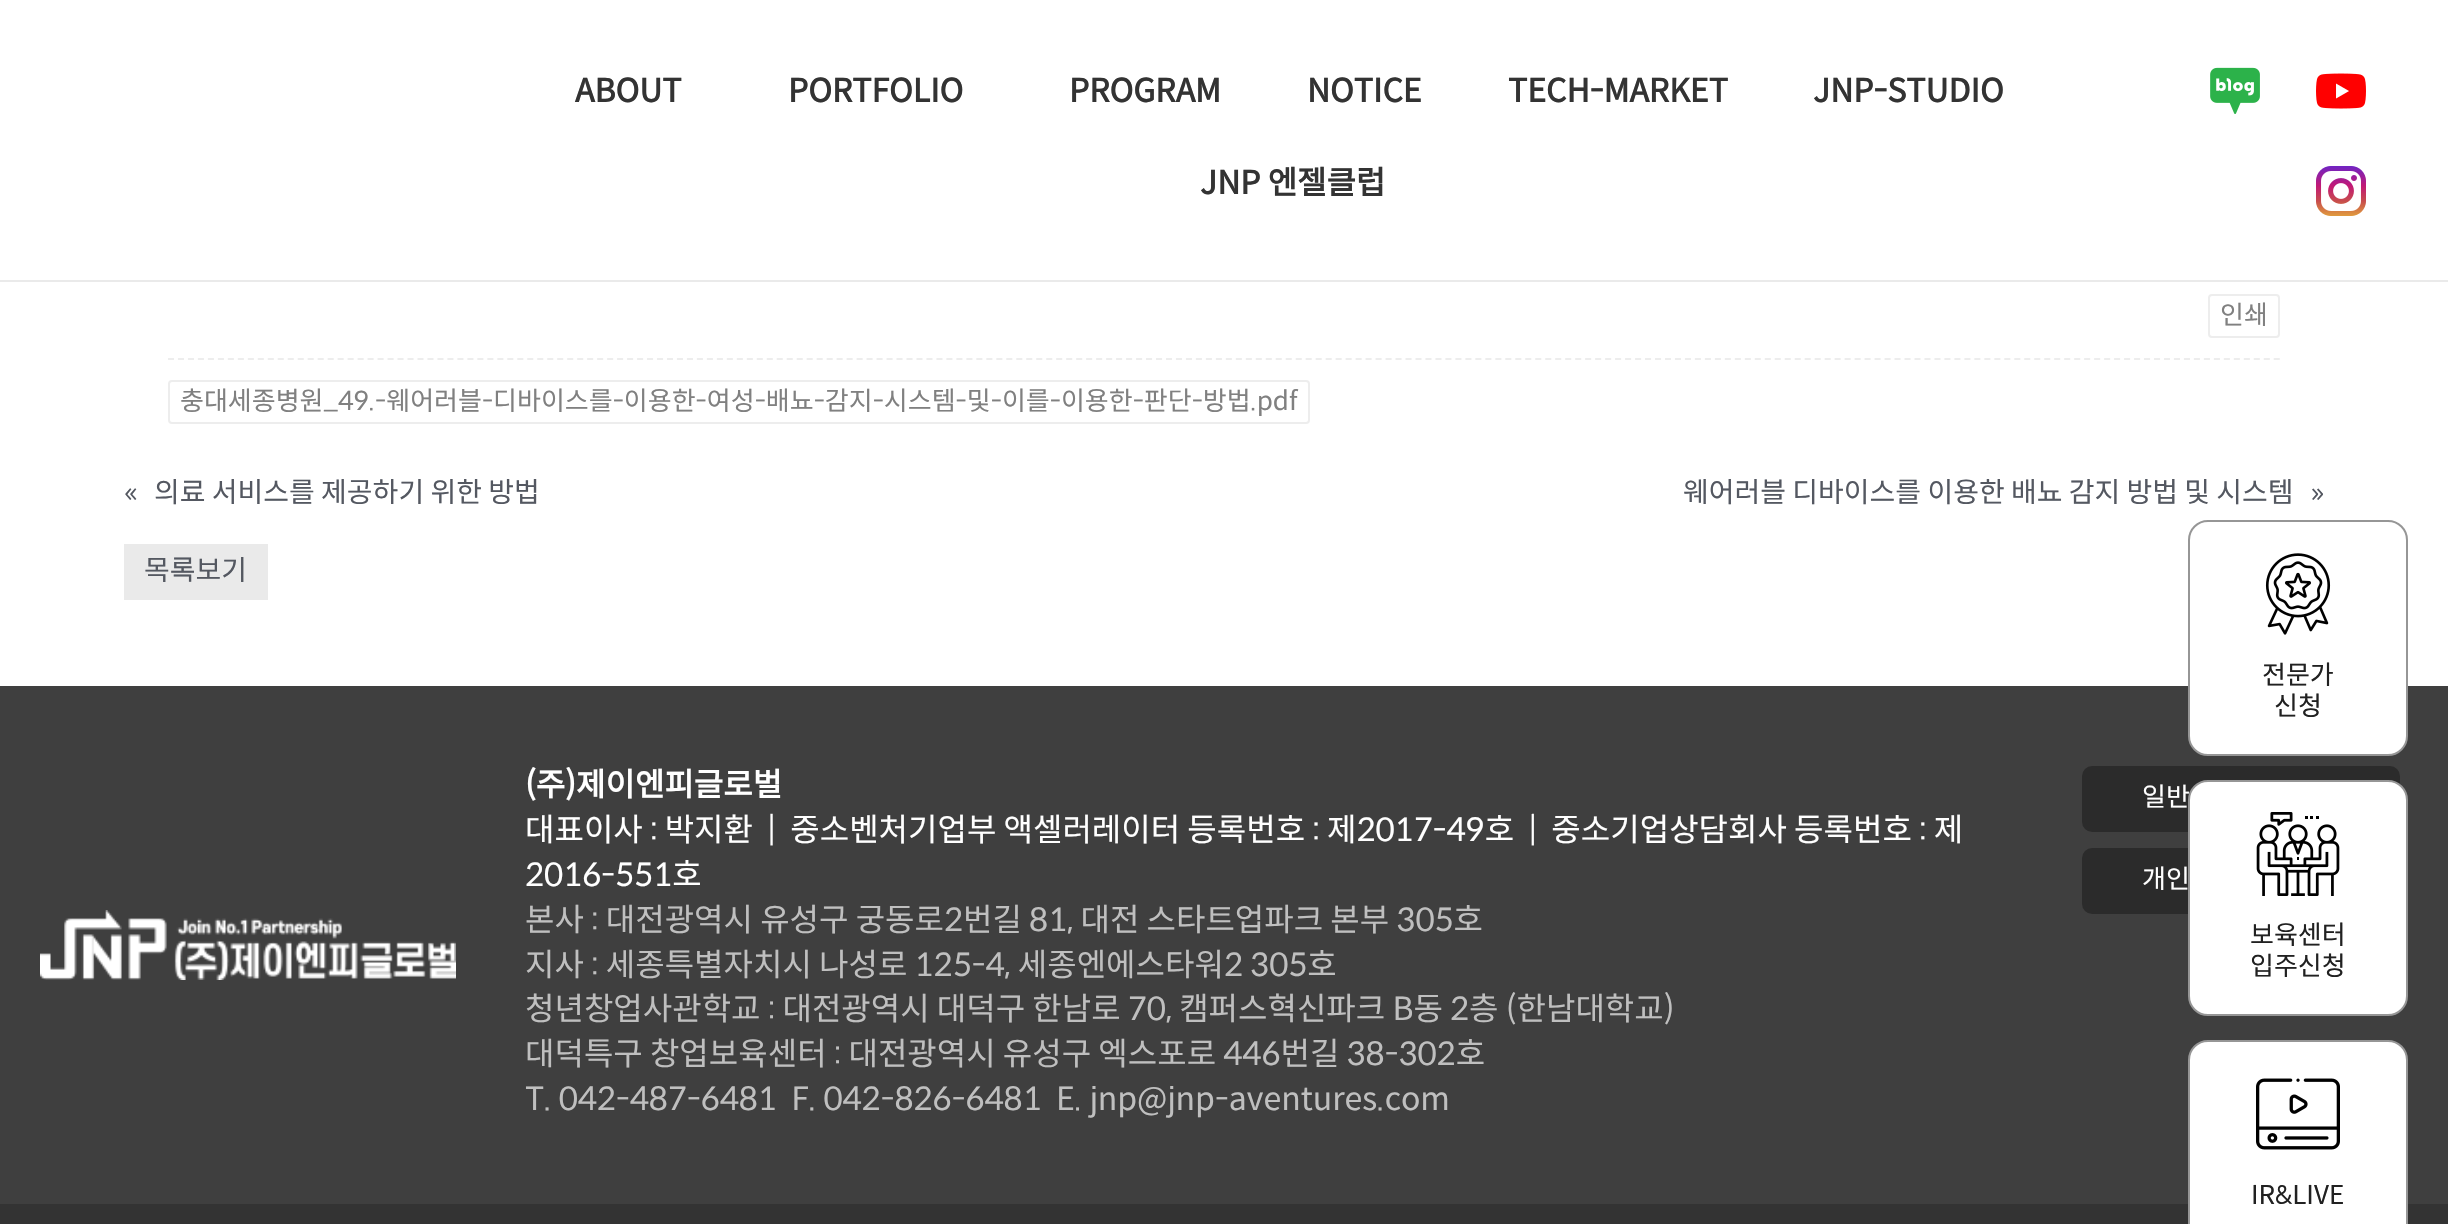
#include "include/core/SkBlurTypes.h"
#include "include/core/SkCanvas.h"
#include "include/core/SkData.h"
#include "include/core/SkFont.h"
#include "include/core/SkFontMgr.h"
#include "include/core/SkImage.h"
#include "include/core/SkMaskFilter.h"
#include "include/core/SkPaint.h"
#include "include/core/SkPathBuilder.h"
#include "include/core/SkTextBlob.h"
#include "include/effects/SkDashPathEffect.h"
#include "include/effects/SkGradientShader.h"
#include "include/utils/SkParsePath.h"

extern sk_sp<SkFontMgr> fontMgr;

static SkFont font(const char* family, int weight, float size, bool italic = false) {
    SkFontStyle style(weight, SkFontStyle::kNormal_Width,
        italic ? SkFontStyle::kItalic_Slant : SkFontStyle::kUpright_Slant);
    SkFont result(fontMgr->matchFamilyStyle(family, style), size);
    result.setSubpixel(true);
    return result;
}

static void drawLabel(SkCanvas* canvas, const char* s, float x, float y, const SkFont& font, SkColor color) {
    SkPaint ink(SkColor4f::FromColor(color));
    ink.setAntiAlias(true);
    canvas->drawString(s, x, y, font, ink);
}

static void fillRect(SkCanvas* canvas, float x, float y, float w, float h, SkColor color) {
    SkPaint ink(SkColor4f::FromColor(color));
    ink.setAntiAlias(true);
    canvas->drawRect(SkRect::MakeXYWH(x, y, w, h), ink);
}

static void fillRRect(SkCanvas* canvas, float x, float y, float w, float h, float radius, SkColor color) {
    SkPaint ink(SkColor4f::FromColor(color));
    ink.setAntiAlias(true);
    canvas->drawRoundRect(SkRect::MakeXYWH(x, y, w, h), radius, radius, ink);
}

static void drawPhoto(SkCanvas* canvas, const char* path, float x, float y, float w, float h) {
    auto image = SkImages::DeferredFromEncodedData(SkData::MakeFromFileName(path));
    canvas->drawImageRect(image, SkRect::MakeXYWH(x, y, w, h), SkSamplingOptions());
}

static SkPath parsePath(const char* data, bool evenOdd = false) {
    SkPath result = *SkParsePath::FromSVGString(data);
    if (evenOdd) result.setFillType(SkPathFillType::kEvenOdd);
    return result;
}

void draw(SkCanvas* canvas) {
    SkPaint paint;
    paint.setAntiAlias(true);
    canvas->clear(0xFFFFFFFF);
    fillRect(canvas, 0, 280, 2448, 2, 0xFFEAEAEA);
    SkFont font1 = font("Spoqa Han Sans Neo", 700, 32);
    drawLabel(canvas, "ABOUT", 575, 102, font1, 0xFF333333);
    drawLabel(canvas, "PORTFOLIO", 788, 102, font1, 0xFF333333);
    drawLabel(canvas, "PROGRAM", 1069, 102, font1, 0xFF333333);
    drawLabel(canvas, "NOTICE", 1307, 102, font1, 0xFF333333);
    drawLabel(canvas, "TECH-MARKET", 1508, 102, font1, 0xFF333333);
    drawLabel(canvas, "JNP-STUDIO", 1813, 102, font1, 0xFF333333);
    drawLabel(canvas, "JNP 엔젤클럽", 1200, 194, font1, 0xFF333333);
    drawPhoto(canvas, "assets/img1.png", 2210, 67, 50, 47);
    drawPhoto(canvas, "assets/img2.png", 2316, 73, 50, 36);
    drawPhoto(canvas, "assets/img3.png", 2316, 166, 50, 50);
    fillRect(canvas, 0, 686, 2448, 518, 0xFF3F3F3F);
    paint.setColor(0xFFFFFFFF);
    canvas->drawRoundRect(SkRect::MakeXYWH(2189, 521, 218, 234), 19, 19, paint);
    paint.setStroke(true);
    paint.setStrokeWidth(2);
    paint.setColor(0xFF969696);
    canvas->drawRoundRect(SkRect::MakeXYWH(2189, 521, 218, 234), 19, 19, paint);
    drawPhoto(canvas, "assets/img4.png", 2265, 553, 66, 82);
    SkFont font2 = font("Spoqa Han Sans Neo", 400, 26);
    drawLabel(canvas, "전문가", 2262, 684, font2, 0xFF212121);
    drawLabel(canvas, "신청", 2274, 715, font2, 0xFF212121);
    fillRRect(canvas, 2082, 766, 318, 66, 10, 0xFF2B2B2B);
    fillRRect(canvas, 2082, 848, 318, 66, 10, 0xFF2B2B2B);
    paint.setStroke(false);
    paint.setColor(0xFFFFFFFF);
    canvas->drawRoundRect(SkRect::MakeXYWH(2189, 781, 218, 234), 19, 19, paint);
    paint.setStroke(true);
    paint.setColor(0xFF969696);
    canvas->drawRoundRect(SkRect::MakeXYWH(2189, 781, 218, 234), 19, 19, paint);
    drawPhoto(canvas, "assets/img5.png", 2256, 812, 84, 84);
    drawLabel(canvas, "보육센터", 2250, 944, font2, 0xFF212121);
    drawLabel(canvas, "입주신청", 2250, 975, font2, 0xFF212121);
    fillRect(canvas, 0, 1204, 2448, 20, 0xFF333333);
    paint.setStroke(false);
    paint.setColor(0xFFFFFFFF);
    canvas->drawRoundRect(SkRect::MakeXYWH(2189, 1041, 218, 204), 19, 19, paint);
    paint.setStroke(true);
    paint.setColor(0xFF969696);
    canvas->drawRoundRect(SkRect::MakeXYWH(2189, 1041, 218, 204), 19, 19, paint);
    drawPhoto(canvas, "assets/img6.png", 2256, 1078, 84, 72);
    drawLabel(canvas, "IR&LIVE", 2251, 1204, font2, 0xFF212121);
    paint.setColor(0xFFEDEDED);
    canvas->drawRoundRect(SkRect::MakeXYWH(2209, 295, 70, 42), 3, 3, paint);
    drawLabel(canvas, "인쇄", 2220, 324, font2, 0xFF808080);
    paint.setPathEffect(SkDashPathEffect::Make({{6, 3.98f}}, 0));
    canvas->drawPath(parsePath("M168 359H2280"), paint);
    paint.setPathEffect(nullptr);
    canvas->drawRoundRect(SkRect::MakeXYWH(169, 381, 1140, 42), 3, 3, paint);
    drawLabel(canvas, "충대세종병원_49.-웨어러블-디바이스를-이용한-여성-배뇨-감지-시스템-및-이를-이용한-판단-방법.pdf", 180, 410, font2, 0xFF808080);
    SkFont font3 = font("Spoqa Han Sans Neo", 400, 28);
    drawLabel(canvas, "«", 124, 502, font3, 0xFF545861);
    drawLabel(canvas, "의료 서비스를 제공하기 위한 방법", 154, 502, font3, 0xFF545861);
    drawLabel(canvas, "웨어러블 디바이스를 이용한 배뇨 감지 방법 및 시스템", 1683, 502, font3, 0xFF545861);
    drawLabel(canvas, "»", 2311, 502, font3, 0xFF545861);
    fillRect(canvas, 124, 544, 144, 56, 0xFFEAEAEA);
    drawLabel(canvas, "목록보기", 144, 580, font3, 0xFF545861);
    drawLabel(canvas, "(주)제이엔피글로벌", 525, 796, font1, 0xFFFFFFFF);
    SkFont font4 = font("Spoqa Han Sans Neo", 400, 32);
    drawLabel(canvas, "대표이사 : 박지환  |  중소벤처기업부 액셀러레이터 등록번호 : 제2017-49호  |  중소기업상담회사 등록번호 : 제", 525, 841, font4, 0xFFFFFFFF);
    drawLabel(canvas, "2016-551호", 525, 886, font4, 0xFFFFFFFF);
    drawLabel(canvas, "본사 : 대전광역시 유성구 궁동로2번길 81, 대전 스타트업파크 본부 305호", 525, 931, font4, 0xFFBFBFBF);
    drawLabel(canvas, "지사 : 세종특별자치시 나성로 125-4, 세종엔에스타워2 305호", 525, 976, font4, 0xFFBFBFBF);
    drawLabel(canvas, "청년창업사관학교 : 대전광역시 대덕구 한남로 70, 캠퍼스혁신파크 B동 2층 (한남대학교)", 525, 1020, font4, 0xFFBFBFBF);
    drawLabel(canvas, "대덕특구 창업보육센터 : 대전광역시 유성구 엑스포로 446번길 38-302호", 525, 1065, font4, 0xFFBFBFBF);
    drawLabel(canvas, "T. 042-487-6481  F. 042-826-6481  E. jnp@jnp-aventures.com", 525, 1110, font4, 0xFFBFBFBF);
    drawLabel(canvas, "일반", 2142, 806, font2, 0xFFFFFFFF);
    drawLabel(canvas, "개인", 2142, 888, font2, 0xFFFFFFFF);
    drawPhoto(canvas, "assets/img7.png", 40, 910, 416, 70);
}
